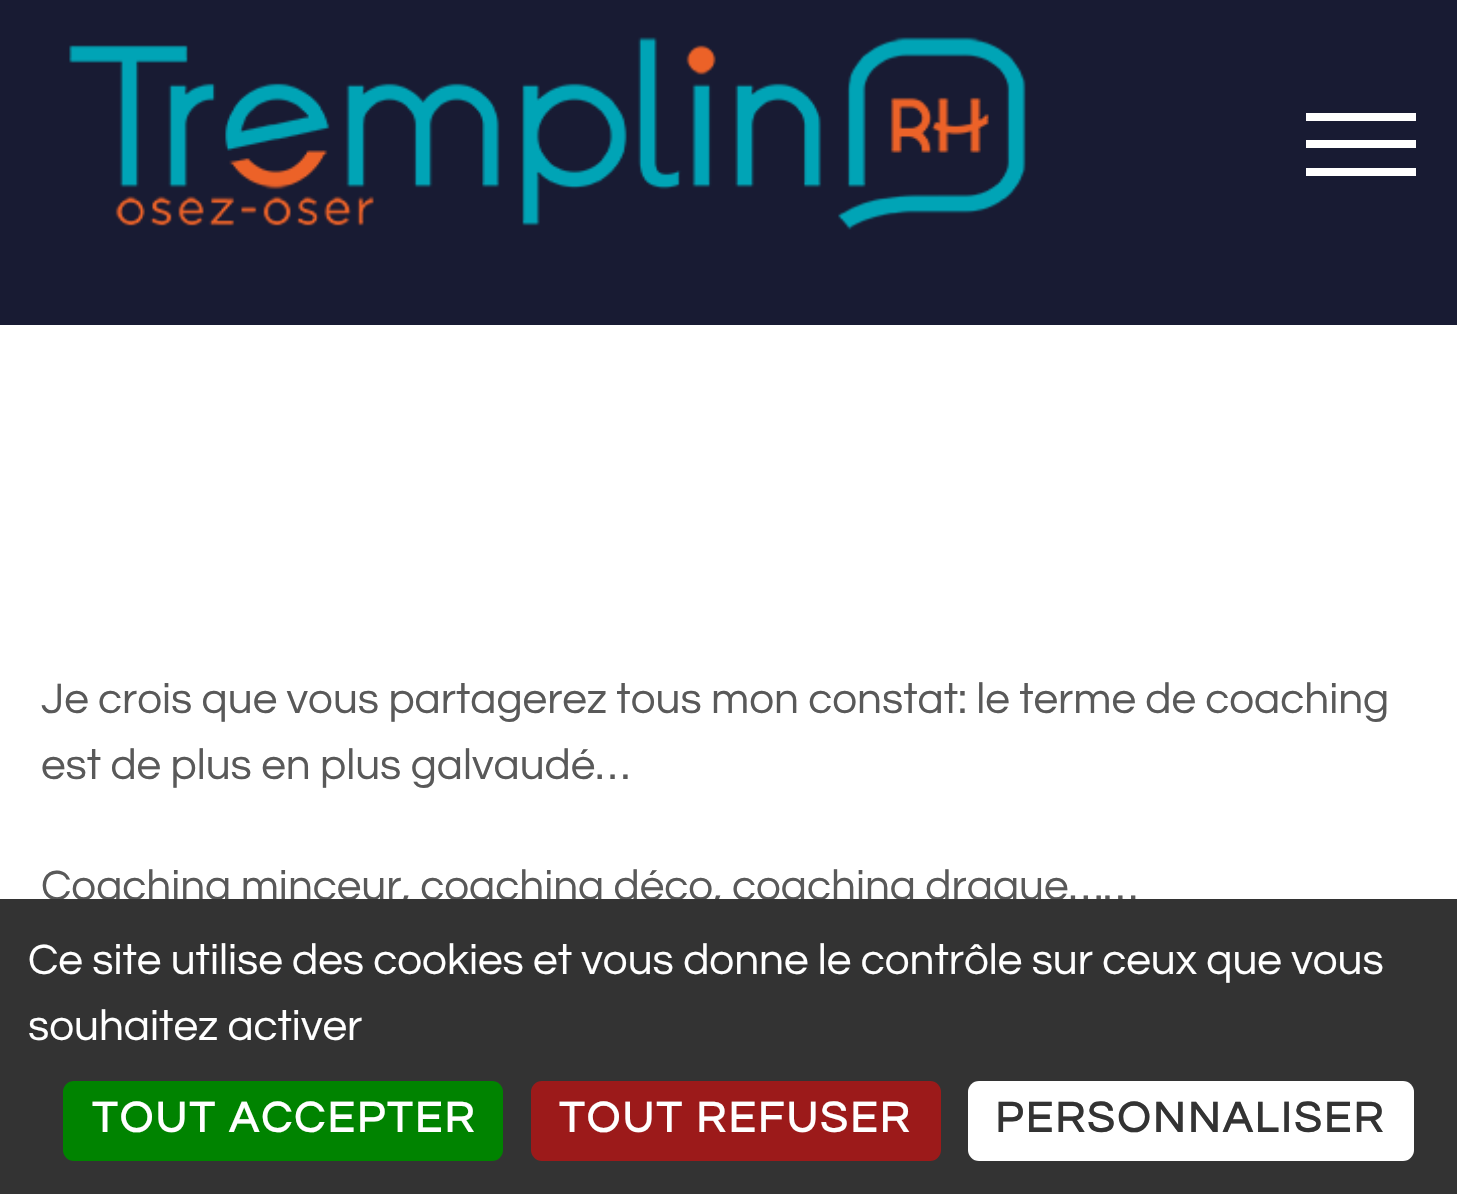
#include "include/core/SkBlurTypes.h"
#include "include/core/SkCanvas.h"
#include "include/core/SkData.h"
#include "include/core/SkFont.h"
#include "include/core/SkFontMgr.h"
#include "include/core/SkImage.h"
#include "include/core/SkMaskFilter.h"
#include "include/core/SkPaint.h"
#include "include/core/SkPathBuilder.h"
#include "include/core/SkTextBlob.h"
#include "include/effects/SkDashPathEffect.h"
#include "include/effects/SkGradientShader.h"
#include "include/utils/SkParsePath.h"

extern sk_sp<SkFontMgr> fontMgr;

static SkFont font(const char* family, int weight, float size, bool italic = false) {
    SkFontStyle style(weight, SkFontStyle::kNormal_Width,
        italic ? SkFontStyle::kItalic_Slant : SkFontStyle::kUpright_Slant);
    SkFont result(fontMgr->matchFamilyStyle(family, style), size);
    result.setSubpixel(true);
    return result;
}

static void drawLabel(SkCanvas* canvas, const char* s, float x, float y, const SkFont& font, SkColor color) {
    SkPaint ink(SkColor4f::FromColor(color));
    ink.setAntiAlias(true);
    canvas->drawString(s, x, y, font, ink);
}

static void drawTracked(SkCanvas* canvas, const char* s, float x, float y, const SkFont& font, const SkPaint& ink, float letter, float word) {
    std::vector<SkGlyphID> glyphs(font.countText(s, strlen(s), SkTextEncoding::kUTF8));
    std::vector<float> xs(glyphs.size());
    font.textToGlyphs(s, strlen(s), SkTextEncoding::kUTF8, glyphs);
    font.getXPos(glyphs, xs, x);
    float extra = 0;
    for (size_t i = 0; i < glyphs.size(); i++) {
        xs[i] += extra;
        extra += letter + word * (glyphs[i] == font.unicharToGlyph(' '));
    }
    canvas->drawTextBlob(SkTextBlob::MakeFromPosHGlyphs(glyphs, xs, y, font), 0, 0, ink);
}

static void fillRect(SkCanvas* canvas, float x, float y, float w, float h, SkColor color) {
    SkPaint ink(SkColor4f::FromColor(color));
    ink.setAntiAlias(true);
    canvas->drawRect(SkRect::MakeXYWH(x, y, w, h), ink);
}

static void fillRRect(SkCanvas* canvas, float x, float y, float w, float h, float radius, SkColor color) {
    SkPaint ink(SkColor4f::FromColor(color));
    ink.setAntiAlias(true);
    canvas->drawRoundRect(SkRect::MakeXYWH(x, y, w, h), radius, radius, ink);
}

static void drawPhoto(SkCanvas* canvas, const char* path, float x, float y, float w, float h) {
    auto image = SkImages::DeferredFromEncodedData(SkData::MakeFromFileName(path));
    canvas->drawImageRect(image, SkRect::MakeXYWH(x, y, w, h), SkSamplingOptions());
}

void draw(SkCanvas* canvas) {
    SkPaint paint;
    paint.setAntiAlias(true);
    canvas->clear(0xFFFFFFFF);
    fillRect(canvas, 0, 0, 1457, 325, 0xFF181B33);
    drawPhoto(canvas, "assets/img1.png", 69, 37, 957, 193);
    fillRect(canvas, 1306, 140, 110, 8, 0xFFFFFFFF);
    fillRect(canvas, 1306, 113, 110, 8, 0xFFFFFFFF);
    fillRect(canvas, 1306, 168, 110, 8, 0xFFFFFFFF);
    SkFont font1 = font("Questrial", 400, 44);
    drawLabel(canvas, "Je crois que vous partagerez tous mon constat: le terme de coaching", 41, 713, font1, 0xFF595959);
    drawLabel(canvas, "est de plus en plus galvaudé…", 41, 779, font1, 0xFF595959);
    drawLabel(canvas, "Coaching minceur, coaching déco, coaching drague……", 41, 900, font1, 0xFF595959);
    fillRect(canvas, 0, 899, 1457, 295, 0xFF333333);
    drawLabel(canvas, "Ce site utilise des cookies et vous donne le contrôle sur ceux que vous", 28, 974, font1, 0xFFFFFFFF);
    drawLabel(canvas, "souhaitez activer", 28, 1040, font1, 0xFFFFFFFF);
    fillRRect(canvas, 63, 1081, 440, 80, 11, 0xFF008300);
    SkFont font2 = font("Questrial", 700, 44);
    paint.setColor(0xFFFFFFFF);
    drawTracked(canvas, "TOUT ACCEPTER", 92, 1132, font2, paint, 2.75f, 0);
    fillRRect(canvas, 531, 1081, 410, 80, 11, 0xFF9C1A1A);
    drawTracked(canvas, "TOUT REFUSER", 559, 1132, font2, paint, 2.75f, 0);
    fillRRect(canvas, 968, 1081, 446, 80, 11, 0xFFFFFFFF);
    paint.setColor(0xFF333333);
    drawTracked(canvas, "PERSONNALISER", 995, 1132, font2, paint, 2.75f, 0);
}
